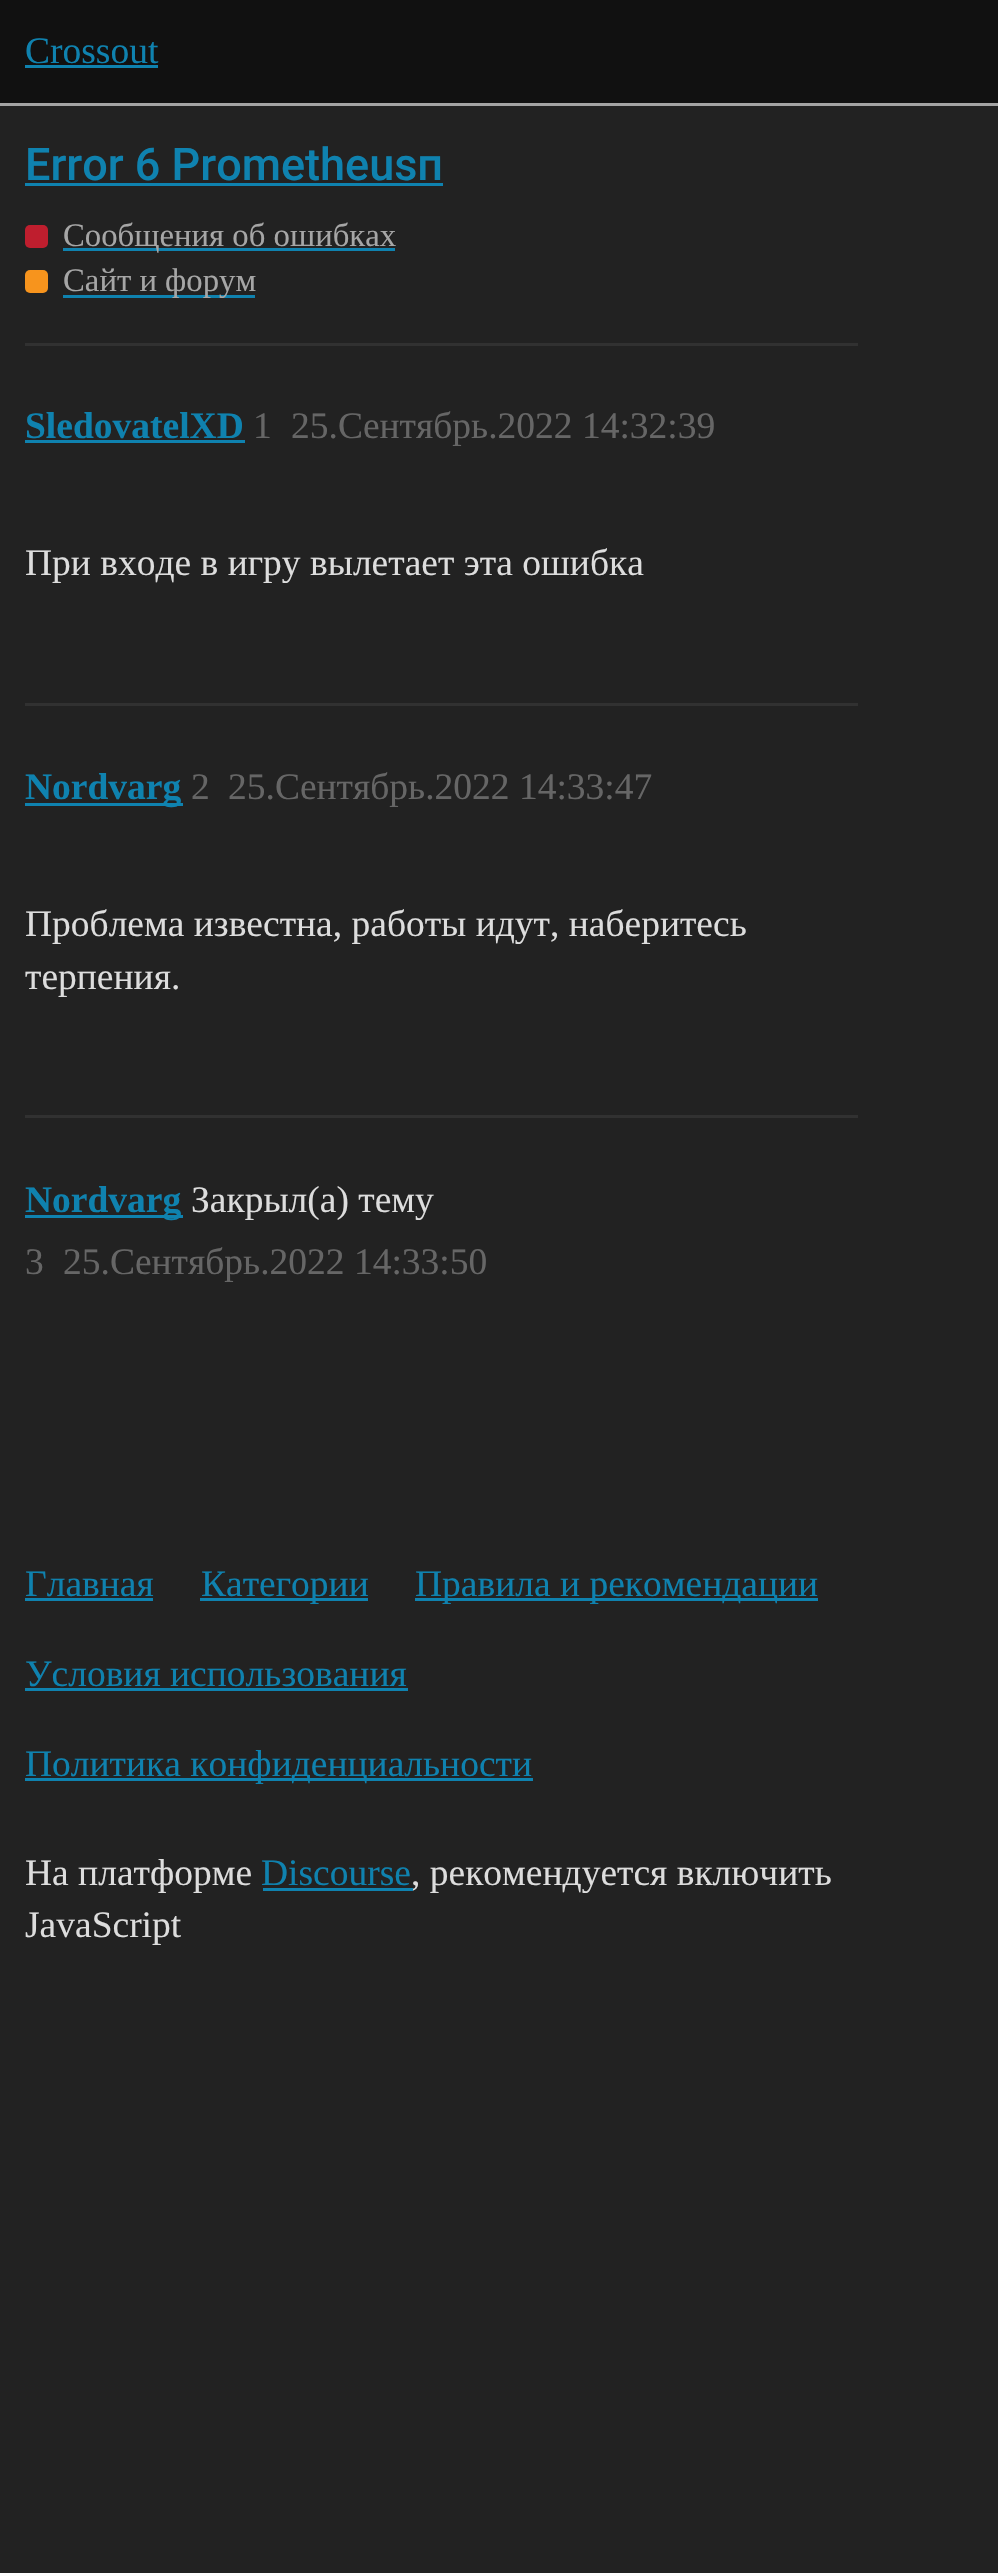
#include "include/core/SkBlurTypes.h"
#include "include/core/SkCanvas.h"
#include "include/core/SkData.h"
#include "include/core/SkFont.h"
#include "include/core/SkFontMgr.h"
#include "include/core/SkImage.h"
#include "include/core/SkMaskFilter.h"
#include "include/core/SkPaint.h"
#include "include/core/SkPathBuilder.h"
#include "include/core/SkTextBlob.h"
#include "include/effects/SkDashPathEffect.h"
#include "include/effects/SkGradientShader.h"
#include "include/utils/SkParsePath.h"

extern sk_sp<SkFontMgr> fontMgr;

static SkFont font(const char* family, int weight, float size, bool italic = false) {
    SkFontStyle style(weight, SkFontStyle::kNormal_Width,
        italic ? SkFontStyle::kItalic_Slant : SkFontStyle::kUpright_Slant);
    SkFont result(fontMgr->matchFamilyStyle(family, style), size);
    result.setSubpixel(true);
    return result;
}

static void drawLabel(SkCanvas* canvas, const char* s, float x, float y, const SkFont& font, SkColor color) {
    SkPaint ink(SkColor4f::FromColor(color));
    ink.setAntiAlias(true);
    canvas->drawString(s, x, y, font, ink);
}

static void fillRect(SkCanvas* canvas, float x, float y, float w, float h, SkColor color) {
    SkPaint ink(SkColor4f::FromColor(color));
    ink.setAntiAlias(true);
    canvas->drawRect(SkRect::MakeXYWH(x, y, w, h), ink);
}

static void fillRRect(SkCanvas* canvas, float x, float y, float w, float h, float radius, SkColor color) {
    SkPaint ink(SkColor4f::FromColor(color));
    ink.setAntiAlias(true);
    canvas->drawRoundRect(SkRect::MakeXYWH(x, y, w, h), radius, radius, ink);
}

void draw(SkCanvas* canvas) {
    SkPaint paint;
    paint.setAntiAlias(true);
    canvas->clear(0xFF222222);
    fillRect(canvas, 0, 0, 998, 103, 0xFF111111);
    fillRect(canvas, 0, 103, 998, 3, 0xFFA4A4A4);
    SkFont font1 = font("Liberation Serif", 400, 37.5f);
    drawLabel(canvas, "Crossout", 25, 63, font1, 0xFF0F82AF);
    fillRect(canvas, 25, 65, 133, 3, 0xFF0F82AF);
    SkFont font2 = font("Roboto", 500, 45);
    drawLabel(canvas, "Error 6 Prometheusп", 25, 180, font2, 0xFF0F82AF);
    fillRect(canvas, 25, 183, 418, 3, 0xFF0F82AF);
    fillRRect(canvas, 25, 225, 23, 23, 5, 0xFFBF1E2E);
    fillRect(canvas, 63, 248, 332, 3, 0xFF0F82AF);
    SkFont font3 = font("Liberation Serif", 400, 32.75f);
    drawLabel(canvas, "Сообщения об ошибках", 63, 246, font3, 0xFFA6A6A6);
    fillRRect(canvas, 25, 270, 23, 23, 5, 0xFFF7941D);
    fillRect(canvas, 63, 295, 192, 3, 0xFF0F82AF);
    drawLabel(canvas, "Сайт и форум", 63, 291, font3, 0xFFA6A6A6);
    fillRect(canvas, 25, 343, 833, 3, 0xFF313131);
    SkFont font4 = font("Liberation Serif", 700, 37.5f);
    drawLabel(canvas, "SledovatelXD", 25, 438, font4, 0xFF0F82AF);
    fillRect(canvas, 25, 440, 220, 3, 0xFF0F82AF);
    drawLabel(canvas, "1", 253, 438, font1, 0xFF666666);
    drawLabel(canvas, "25.Сентябрь.2022 14:32:39", 291, 438, font1, 0xFF666666);
    drawLabel(canvas, "При входе в игру вылетает эта ошибка", 25, 575, font1, 0xFFDDDDDD);
    fillRect(canvas, 25, 703, 833, 3, 0xFF313131);
    fillRect(canvas, 25, 803, 158, 3, 0xFF0F82AF);
    drawLabel(canvas, "Nordvarg", 25, 799, font4, 0xFF0F82AF);
    drawLabel(canvas, "2", 191, 799, font1, 0xFF666666);
    drawLabel(canvas, "25.Сентябрь.2022 14:33:47", 228, 799, font1, 0xFF666666);
    drawLabel(canvas, "Проблема известна, работы идут, наберитесь", 25, 936, font1, 0xFFDDDDDD);
    drawLabel(canvas, "терпения.", 25, 989, font1, 0xFFDDDDDD);
    fillRect(canvas, 25, 1115, 833, 3, 0xFF313131);
    fillRect(canvas, 25, 1215, 158, 3, 0xFF0F82AF);
    drawLabel(canvas, "Nordvarg", 25, 1212, font4, 0xFF0F82AF);
    drawLabel(canvas, "Закрыл(а) тему", 191, 1212, font1, 0xFFDDDDDD);
    drawLabel(canvas, "3", 25, 1274, font1, 0xFF666666);
    drawLabel(canvas, "25.Сентябрь.2022 14:33:50", 63, 1274, font1, 0xFF666666);
    drawLabel(canvas, "Главная", 25, 1596, font1, 0xFF0F82AF);
    fillRect(canvas, 25, 1598, 128, 3, 0xFF0F82AF);
    fillRect(canvas, 200, 1598, 168, 3, 0xFF0F82AF);
    drawLabel(canvas, "Категории", 201, 1596, font1, 0xFF0F82AF);
    fillRect(canvas, 415, 1598, 403, 3, 0xFF0F82AF);
    drawLabel(canvas, "Правила и рекомендации", 415, 1596, font1, 0xFF0F82AF);
    drawLabel(canvas, "Условия использования", 25, 1686, font1, 0xFF0F82AF);
    fillRect(canvas, 25, 1688, 383, 3, 0xFF0F82AF);
    fillRect(canvas, 25, 1778, 508, 3, 0xFF0F82AF);
    drawLabel(canvas, "Политика конфиденциальности", 25, 1776, font1, 0xFF0F82AF);
    drawLabel(canvas, "На платформе", 25, 1885, font1, 0xFFDDDDDD);
    drawLabel(canvas, "Discourse", 261, 1885, font1, 0xFF0F82AF);
    drawLabel(canvas, ", рекомендуется включить", 411, 1885, font1, 0xFFDDDDDD);
    fillRect(canvas, 263, 1888, 150, 3, 0xFF0F82AF);
    drawLabel(canvas, "JavaScript", 25, 1937, font1, 0xFFDDDDDD);
}
